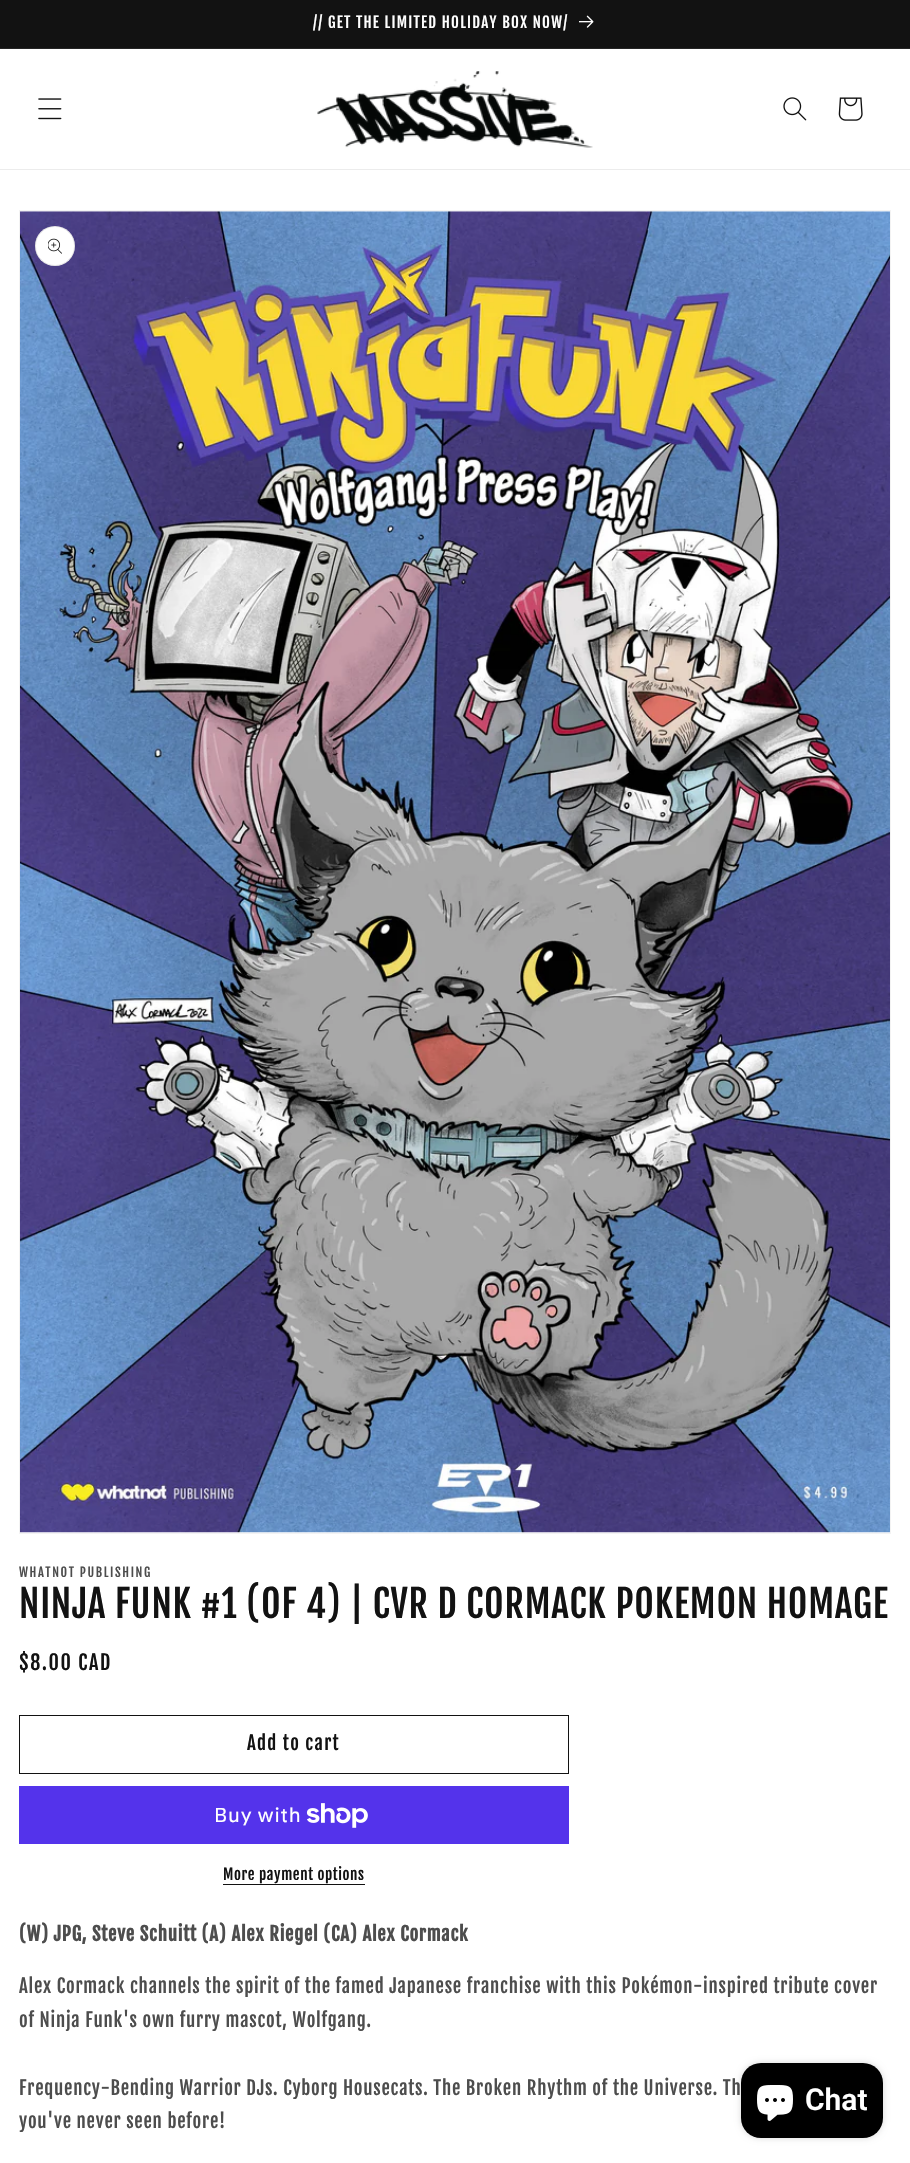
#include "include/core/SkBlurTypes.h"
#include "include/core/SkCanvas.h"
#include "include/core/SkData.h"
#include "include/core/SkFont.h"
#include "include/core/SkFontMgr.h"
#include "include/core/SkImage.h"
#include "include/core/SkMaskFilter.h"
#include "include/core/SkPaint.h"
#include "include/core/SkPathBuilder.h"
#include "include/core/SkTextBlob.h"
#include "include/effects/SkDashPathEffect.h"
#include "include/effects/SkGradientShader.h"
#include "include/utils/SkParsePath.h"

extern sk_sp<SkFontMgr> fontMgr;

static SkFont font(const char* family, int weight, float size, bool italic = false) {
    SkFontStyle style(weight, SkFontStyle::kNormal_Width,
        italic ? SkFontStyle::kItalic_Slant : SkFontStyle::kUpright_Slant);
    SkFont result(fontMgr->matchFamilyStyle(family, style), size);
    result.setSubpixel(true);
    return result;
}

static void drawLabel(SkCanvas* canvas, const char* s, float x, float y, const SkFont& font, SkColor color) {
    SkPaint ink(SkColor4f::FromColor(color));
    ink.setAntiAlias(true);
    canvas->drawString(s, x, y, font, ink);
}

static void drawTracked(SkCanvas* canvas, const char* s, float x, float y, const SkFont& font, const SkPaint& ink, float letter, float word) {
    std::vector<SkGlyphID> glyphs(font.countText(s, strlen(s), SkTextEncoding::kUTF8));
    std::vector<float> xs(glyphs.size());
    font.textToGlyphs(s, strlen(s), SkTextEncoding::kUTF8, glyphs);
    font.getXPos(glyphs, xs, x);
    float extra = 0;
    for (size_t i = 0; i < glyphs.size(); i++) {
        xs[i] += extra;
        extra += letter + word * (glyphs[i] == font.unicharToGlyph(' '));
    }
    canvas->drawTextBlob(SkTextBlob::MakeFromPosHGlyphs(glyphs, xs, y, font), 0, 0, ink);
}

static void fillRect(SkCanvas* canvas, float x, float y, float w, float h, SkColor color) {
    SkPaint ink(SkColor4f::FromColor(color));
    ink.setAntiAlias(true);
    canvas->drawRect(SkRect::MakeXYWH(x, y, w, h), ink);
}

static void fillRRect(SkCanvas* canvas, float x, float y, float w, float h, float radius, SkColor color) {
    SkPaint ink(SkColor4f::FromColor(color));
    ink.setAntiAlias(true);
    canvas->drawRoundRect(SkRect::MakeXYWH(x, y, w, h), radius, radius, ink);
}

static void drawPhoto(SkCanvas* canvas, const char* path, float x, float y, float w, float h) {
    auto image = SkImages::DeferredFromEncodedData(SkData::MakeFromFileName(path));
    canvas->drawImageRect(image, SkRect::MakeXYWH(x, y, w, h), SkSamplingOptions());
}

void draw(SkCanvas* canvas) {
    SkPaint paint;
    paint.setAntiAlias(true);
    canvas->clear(0xFFFFFFFF);
    fillRect(canvas, 0, 0, 910, 48, 0xFF121212);
    fillRect(canvas, 0, 48, 910, 1, 0xFF252525);
    SkFont font1 = font("Fjalla One", 400, 15);
    paint.setColor(0xFFFFFFFF);
    drawTracked(canvas, "// GET THE LIMITED HOLIDAY BOX NOW/", 313, 28, font1, paint, 1.25f, 0);
    drawPhoto(canvas, "assets/img1.png", 579, 15, 15, 13);
    fillRect(canvas, 0, 169, 910, 1, 0xFFECECEC);
    drawPhoto(canvas, "assets/img2.png", 38, 98, 24, 22);
    drawPhoto(canvas, "assets/img3.png", 317, 71, 276, 77);
    drawPhoto(canvas, "assets/img4.png", 783, 97, 24, 24);
    drawPhoto(canvas, "assets/img5.png", 838, 97, 25, 24);
    paint.setStroke(true);
    paint.setStrokeWidth(1);
    paint.setColor(0xFFF3F3F3);
    canvas->drawRect(SkRect::MakeXYWH(19.5f, 210.5f, 871, 1323), paint);
    drawPhoto(canvas, "assets/img6.png", 20, 211, 870, 1322);
    paint.setStroke(false);
    paint.setColor(0xFFFFFFFF);
    canvas->drawCircle(55, 246, 20, paint);
    paint.setStroke(true);
    paint.setColor(0x1A121212);
    canvas->drawCircle(55, 246, 19.5f, paint);
    drawPhoto(canvas, "assets/img7.png", 48, 238, 14, 16);
    SkFont font2 = font("Fjalla One", 400, 12.5f);
    paint.setStroke(false);
    paint.setColor(0xFF4D4D4D);
    drawTracked(canvas, "WHATNOT PUBLISHING", 19, 1577, font2, paint, 1.6f, 0);
    SkFont font3 = font("Fjalla One", 400, 37.5f);
    paint.setColor(0xFF121212);
    drawTracked(canvas, "NINJA FUNK #1 (OF 4) | CVR D CORMACK POKEMON HOMAGE", 19, 1618, font3, paint, 0.75f, 0);
    SkFont font4 = font("Fjalla One", 400, 20);
    drawTracked(canvas, "$8.00 CAD", 19, 1670, font4, paint, 1.6f, 0);
    paint.setStroke(true);
    canvas->drawRect(SkRect::MakeXYWH(19.5f, 1715.5f, 549, 58), paint);
    SkFont font5 = font("Fjalla One", 400, 18.75f);
    paint.setStroke(false);
    drawTracked(canvas, "Add to cart", 247, 1750, font5, paint, 1.25f, 0);
    fillRect(canvas, 19, 1786, 550, 58, 0xFF5433EB);
    SkFont font6 = font("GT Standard", 400, 20);
    paint.setColor(0xFFFFFFFF);
    drawTracked(canvas, "Buy with", 214, 1822, font6, paint, 0.75f, 0);
    drawPhoto(canvas, "assets/img8.png", 306, 1803, 62, 25);
    paint.setColor(0xFF121212);
    drawTracked(canvas, "More payment options", 223, 1880, font1, paint, 0.6f, 0);
    fillRect(canvas, 223, 1884, 142, 1, 0xFF121212);
    SkFont font7 = font("Fjalla One", 700, 18.75f);
    paint.setColor(0xFF4D4D4D);
    drawTracked(canvas, "(W) JPG, Steve Schuitt (A) Alex Riegel (CA) Alex Cormack", 19, 1941, font7, paint, 0.75f, 0);
    drawTracked(canvas, "Alex Cormack channels the spirit of the famed Japanese franchise with this Pokémon-inspired tribute cover", 19, 1993, font5, paint, 0.75f, 0);
    drawTracked(canvas, "of Ninja Funk's own furry mascot, Wolfgang.", 19, 2027, font5, paint, 0.75f, 0);
    drawTracked(canvas, "Frequency-Bending Warrior DJs. Cyborg Housecats. The Broken Rhythm of the Universe. Th", 19, 2095, font5, paint, 0.75f, 0);
    drawTracked(canvas, "you've never seen before!", 19, 2128, font5, paint, 0.75f, 0);
    paint.setColor(0x26000000);
    paint.setMaskFilter(SkMaskFilter::MakeBlur(kNormal_SkBlurStyle, 3));
    canvas->drawRoundRect(SkRect::MakeXYWH(741, 2063, 142, 75), 20, 20, paint);
    paint.setMaskFilter(nullptr);
    fillRRect(canvas, 741, 2063, 142, 75, 20, 0xFF000000);
    drawPhoto(canvas, "assets/img9.png", 757, 2085, 36, 36);
    SkFont font8 = font("Roboto", 600, 30);
    drawLabel(canvas, "Chat", 805, 2110, font8, 0xFFFFFFFF);
}
